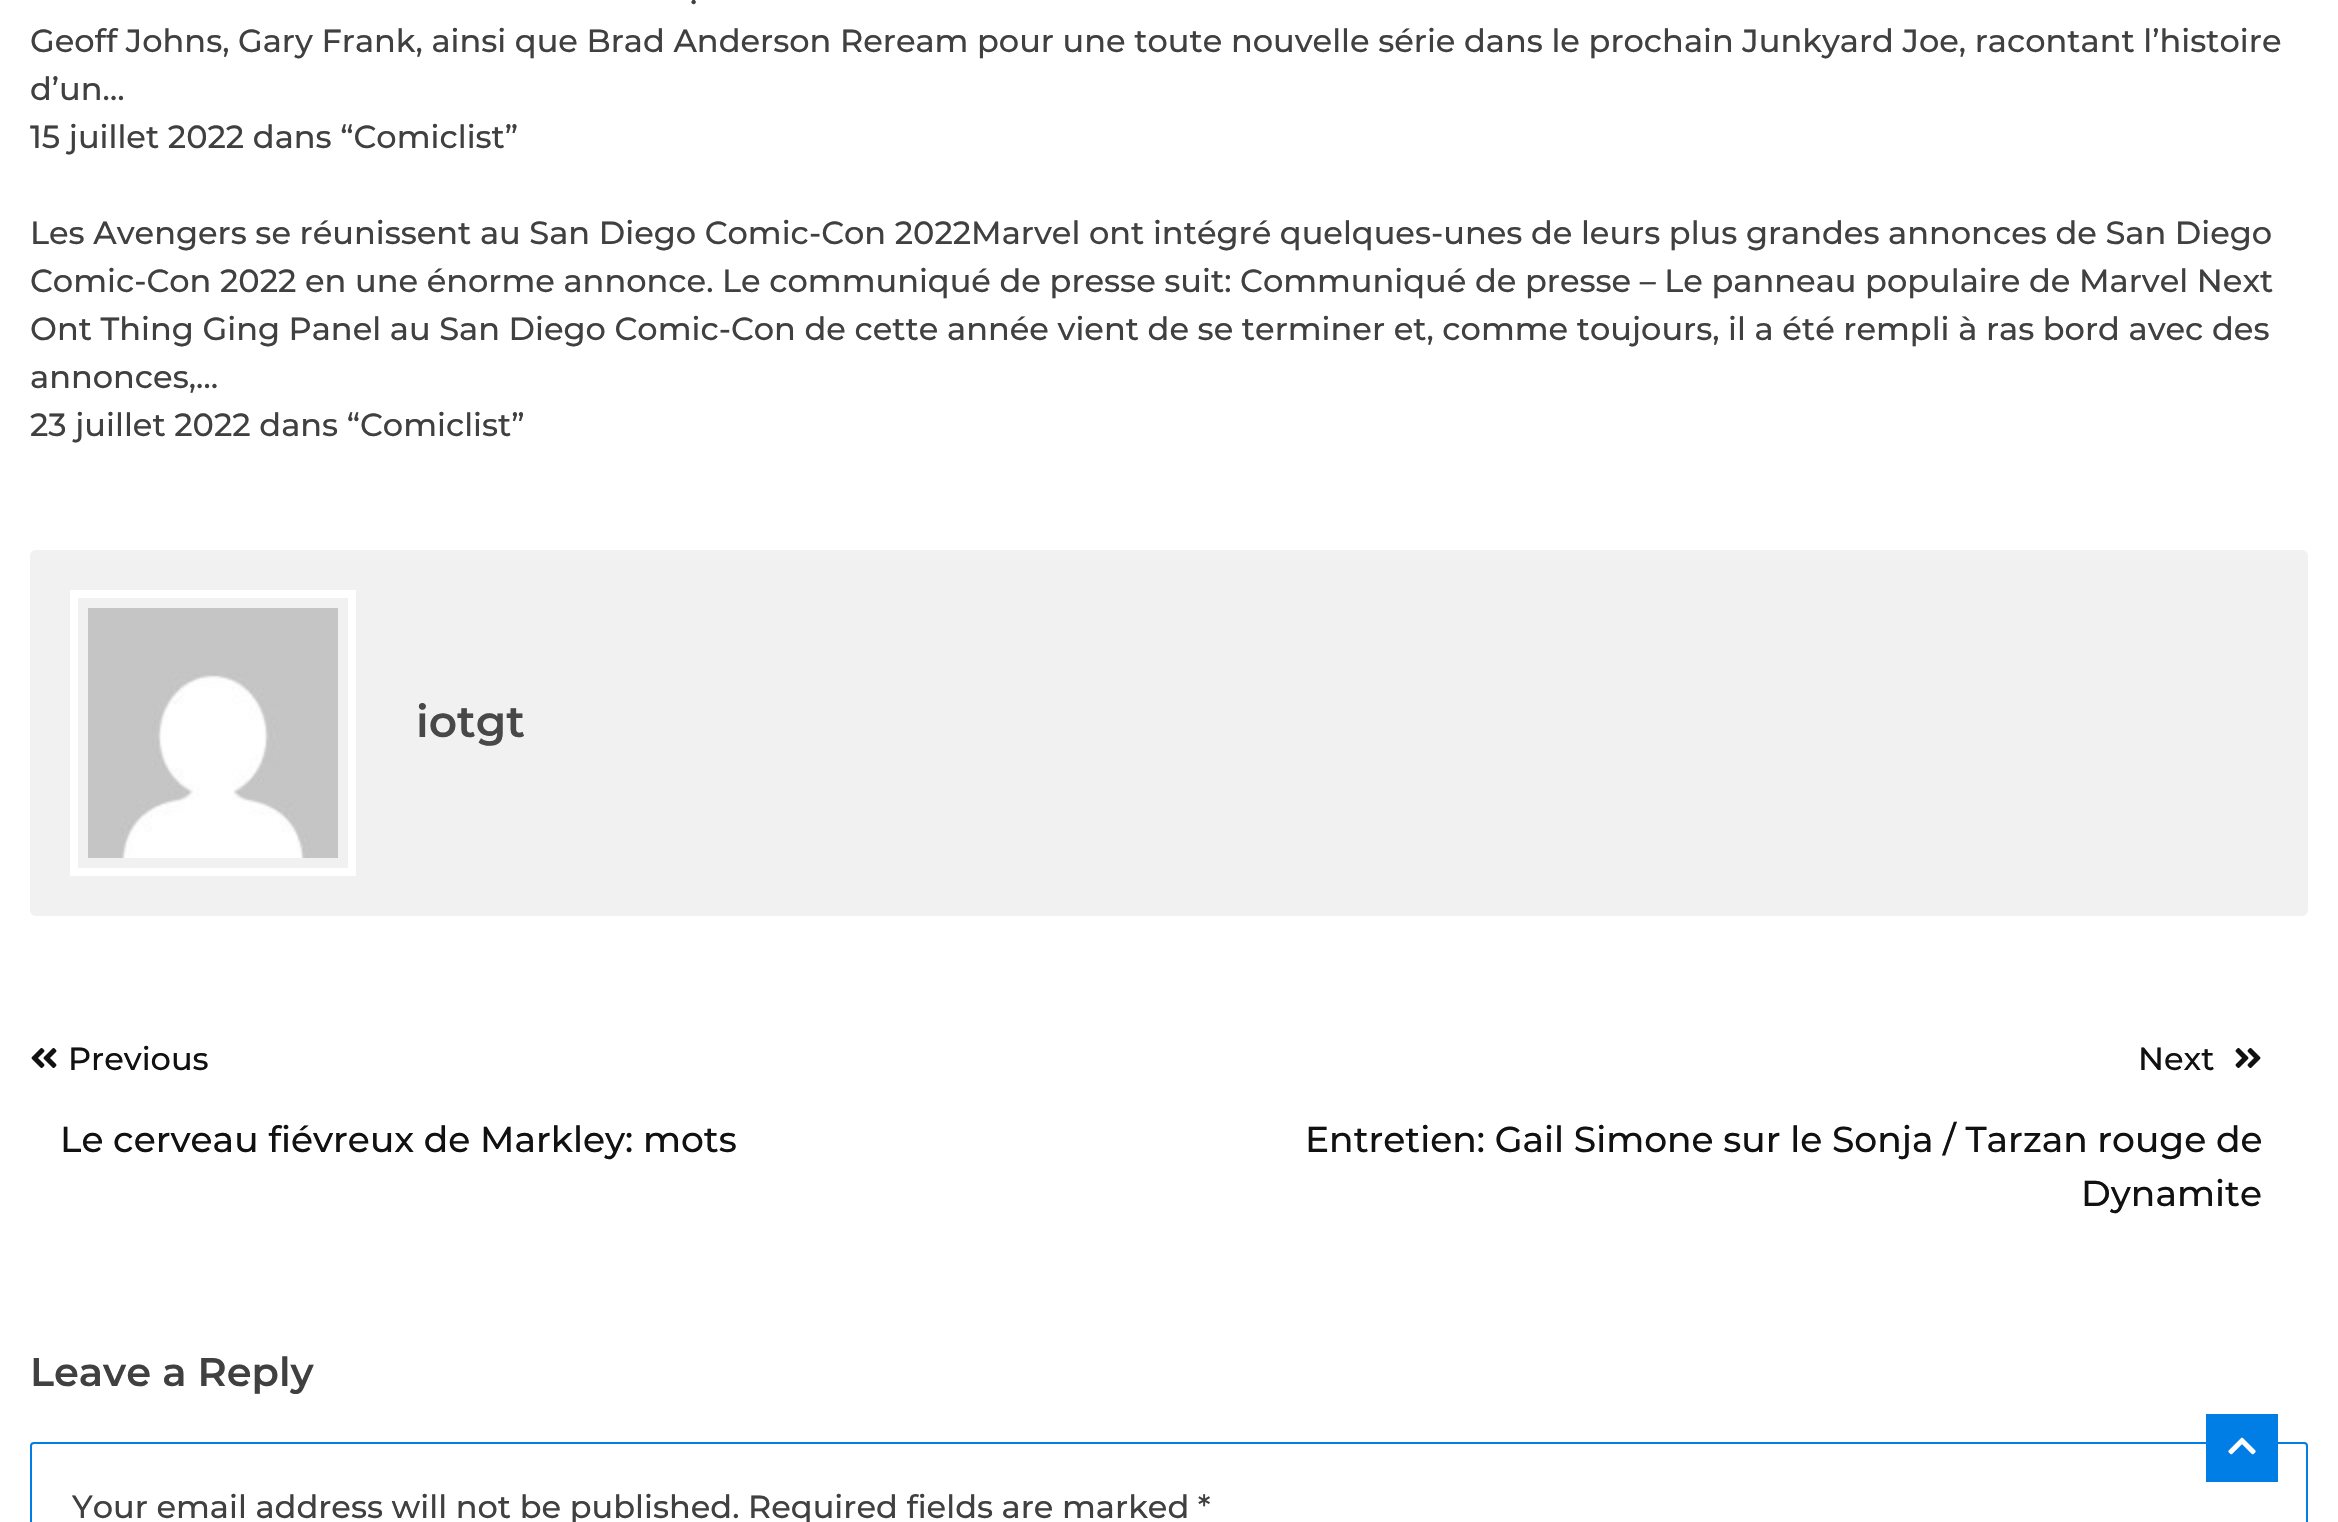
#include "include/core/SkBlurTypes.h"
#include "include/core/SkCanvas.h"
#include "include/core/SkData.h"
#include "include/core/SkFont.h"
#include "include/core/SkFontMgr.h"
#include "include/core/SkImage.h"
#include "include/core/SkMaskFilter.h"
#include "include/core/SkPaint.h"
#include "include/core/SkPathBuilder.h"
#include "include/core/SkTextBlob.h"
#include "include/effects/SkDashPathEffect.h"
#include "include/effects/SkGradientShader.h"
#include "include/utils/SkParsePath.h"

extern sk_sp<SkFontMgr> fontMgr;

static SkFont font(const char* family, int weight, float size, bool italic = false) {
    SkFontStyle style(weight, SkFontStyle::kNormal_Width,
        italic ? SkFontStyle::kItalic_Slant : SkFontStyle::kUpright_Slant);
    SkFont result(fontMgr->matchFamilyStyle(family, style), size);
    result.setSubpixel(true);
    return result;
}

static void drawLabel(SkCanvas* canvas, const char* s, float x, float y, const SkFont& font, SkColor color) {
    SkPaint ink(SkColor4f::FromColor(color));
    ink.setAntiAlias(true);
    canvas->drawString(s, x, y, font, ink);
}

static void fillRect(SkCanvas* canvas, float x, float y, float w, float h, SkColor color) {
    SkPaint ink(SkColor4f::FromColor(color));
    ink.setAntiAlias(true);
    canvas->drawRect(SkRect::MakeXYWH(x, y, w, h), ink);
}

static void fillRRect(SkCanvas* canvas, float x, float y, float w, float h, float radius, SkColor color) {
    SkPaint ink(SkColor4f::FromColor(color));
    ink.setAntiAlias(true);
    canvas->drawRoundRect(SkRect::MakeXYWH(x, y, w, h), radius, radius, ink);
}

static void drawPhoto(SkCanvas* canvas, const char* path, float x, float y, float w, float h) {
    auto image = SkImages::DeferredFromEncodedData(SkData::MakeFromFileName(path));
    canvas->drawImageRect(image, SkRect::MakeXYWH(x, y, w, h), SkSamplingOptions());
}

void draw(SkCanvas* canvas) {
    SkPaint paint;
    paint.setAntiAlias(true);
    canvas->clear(0xFFFFFFFF);
    SkFont font1 = font("Montserrat", 500, 32);
    drawLabel(canvas, ".", 690, 4, font1, 0xFF404040);
    drawLabel(canvas, "Geoff Johns, Gary Frank, ainsi que Brad Anderson Reream pour une toute nouvelle série dans le prochain Junkyard Joe, racontant l’histoire", 30, 52, font1, 0xFF404040);
    drawLabel(canvas, "d’un…", 30, 100, font1, 0xFF404040);
    drawLabel(canvas, "15 juillet 2022 dans “Comiclist”", 30, 148, font1, 0xFF404040);
    drawLabel(canvas, "Les Avengers se réunissent au San Diego Comic-Con 2022Marvel ont intégré quelques-unes de leurs plus grandes annonces de San Diego", 30, 244, font1, 0xFF404040);
    drawLabel(canvas, "Comic-Con 2022 en une énorme annonce. Le communiqué de presse suit: Communiqué de presse – Le panneau populaire de Marvel Next", 30, 292, font1, 0xFF404040);
    drawLabel(canvas, "Ont Thing Ging Panel au San Diego Comic-Con de cette année vient de se terminer et, comme toujours, il a été rempli à ras bord avec des", 30, 340, font1, 0xFF404040);
    drawLabel(canvas, "annonces,…", 30, 388, font1, 0xFF404040);
    drawLabel(canvas, "23 juillet 2022 dans “Comiclist”", 30, 436, font1, 0xFF404040);
    fillRRect(canvas, 30, 550, 2278, 366, 6, 0xFFF1F1F1);
    paint.setStroke(true);
    paint.setStrokeWidth(8);
    paint.setColor(0xFFFFFFFF);
    canvas->drawRect(SkRect::MakeXYWH(74, 594, 278, 278), paint);
    drawPhoto(canvas, "assets/img1.png", 88, 608, 250, 250);
    SkFont font2 = font("Montserrat", 600, 44);
    drawLabel(canvas, "iotgt", 416, 737, font2, 0xFF484848);
    drawPhoto(canvas, "assets/img2.png", 31, 1048, 26, 20);
    drawLabel(canvas, "Previous", 68, 1070, font1, 0xFF111111);
    SkFont font3 = font("Montserrat", 500, 36);
    drawLabel(canvas, "Le cerveau fiévreux de Markley: mots", 60, 1152, font3, 0xFF111111);
    drawLabel(canvas, "Next", 2138, 1070, font1, 0xFF111111);
    drawPhoto(canvas, "assets/img3.png", 2235, 1048, 26, 20);
    drawLabel(canvas, "Entretien: Gail Simone sur le Sonja / Tarzan rouge de", 1305, 1152, font3, 0xFF111111);
    drawLabel(canvas, "Dynamite", 2081, 1206, font3, 0xFF111111);
    SkFont font4 = font("Montserrat", 600, 40);
    drawLabel(canvas, "Leave a Reply", 30, 1386, font4, 0xFF404040);
    paint.setStrokeWidth(2);
    paint.setColor(0xFF007EE5);
    canvas->drawRoundRect(SkRect::MakeXYWH(31, 1443, 2276, 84), 3, 3, paint);
    drawLabel(canvas, "Your email address will not be published. Required fields are marked *", 72, 1518, font1, 0xFF404040);
    fillRect(canvas, 2206, 1414, 72, 68, 0xFF007EE5);
    drawPhoto(canvas, "assets/img4.png", 2228, 1437, 28, 18);
}
